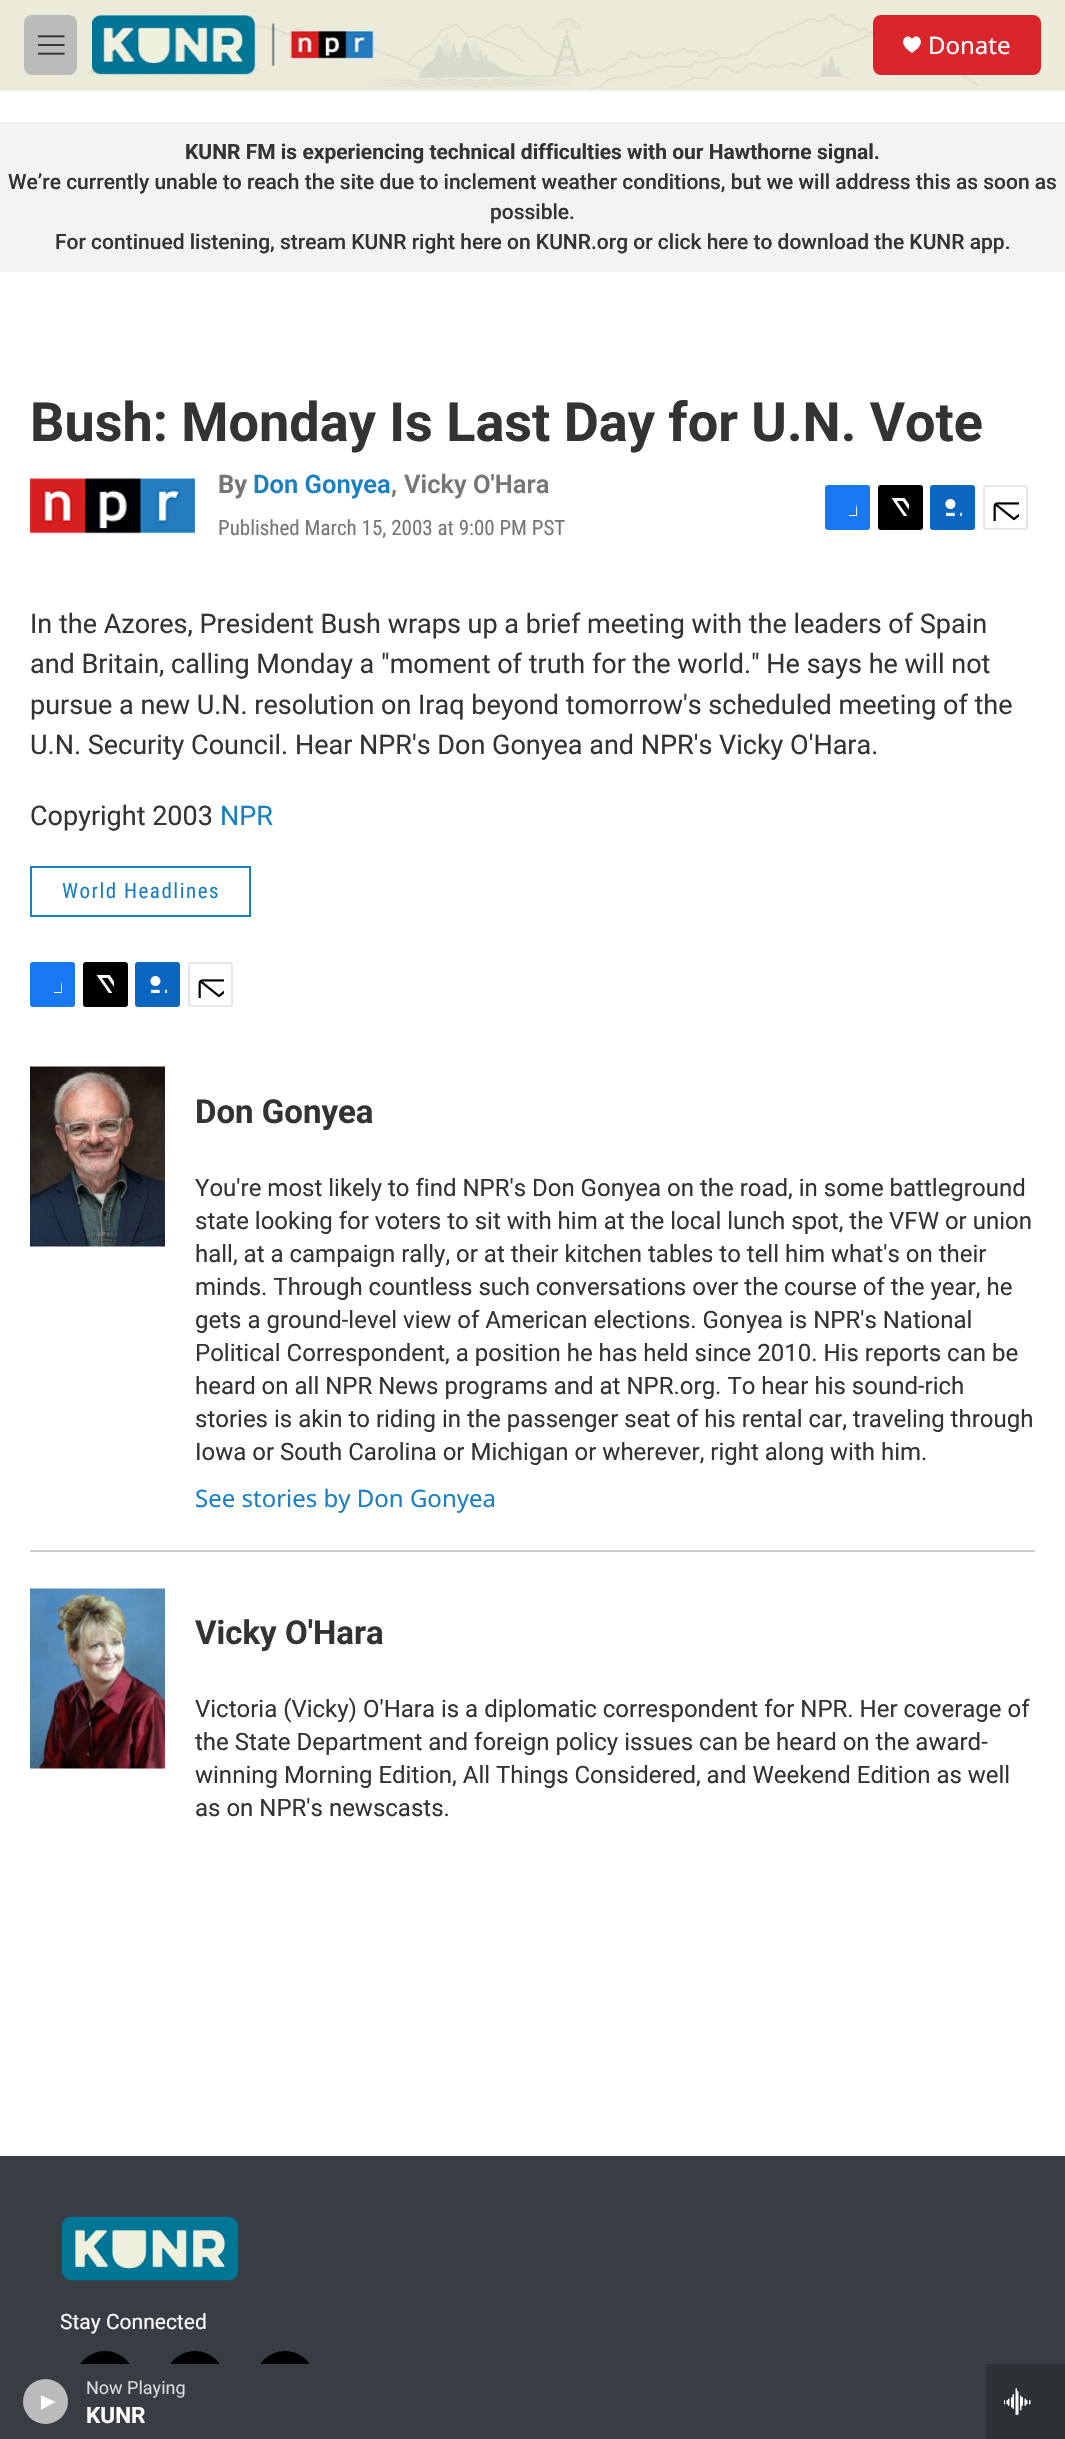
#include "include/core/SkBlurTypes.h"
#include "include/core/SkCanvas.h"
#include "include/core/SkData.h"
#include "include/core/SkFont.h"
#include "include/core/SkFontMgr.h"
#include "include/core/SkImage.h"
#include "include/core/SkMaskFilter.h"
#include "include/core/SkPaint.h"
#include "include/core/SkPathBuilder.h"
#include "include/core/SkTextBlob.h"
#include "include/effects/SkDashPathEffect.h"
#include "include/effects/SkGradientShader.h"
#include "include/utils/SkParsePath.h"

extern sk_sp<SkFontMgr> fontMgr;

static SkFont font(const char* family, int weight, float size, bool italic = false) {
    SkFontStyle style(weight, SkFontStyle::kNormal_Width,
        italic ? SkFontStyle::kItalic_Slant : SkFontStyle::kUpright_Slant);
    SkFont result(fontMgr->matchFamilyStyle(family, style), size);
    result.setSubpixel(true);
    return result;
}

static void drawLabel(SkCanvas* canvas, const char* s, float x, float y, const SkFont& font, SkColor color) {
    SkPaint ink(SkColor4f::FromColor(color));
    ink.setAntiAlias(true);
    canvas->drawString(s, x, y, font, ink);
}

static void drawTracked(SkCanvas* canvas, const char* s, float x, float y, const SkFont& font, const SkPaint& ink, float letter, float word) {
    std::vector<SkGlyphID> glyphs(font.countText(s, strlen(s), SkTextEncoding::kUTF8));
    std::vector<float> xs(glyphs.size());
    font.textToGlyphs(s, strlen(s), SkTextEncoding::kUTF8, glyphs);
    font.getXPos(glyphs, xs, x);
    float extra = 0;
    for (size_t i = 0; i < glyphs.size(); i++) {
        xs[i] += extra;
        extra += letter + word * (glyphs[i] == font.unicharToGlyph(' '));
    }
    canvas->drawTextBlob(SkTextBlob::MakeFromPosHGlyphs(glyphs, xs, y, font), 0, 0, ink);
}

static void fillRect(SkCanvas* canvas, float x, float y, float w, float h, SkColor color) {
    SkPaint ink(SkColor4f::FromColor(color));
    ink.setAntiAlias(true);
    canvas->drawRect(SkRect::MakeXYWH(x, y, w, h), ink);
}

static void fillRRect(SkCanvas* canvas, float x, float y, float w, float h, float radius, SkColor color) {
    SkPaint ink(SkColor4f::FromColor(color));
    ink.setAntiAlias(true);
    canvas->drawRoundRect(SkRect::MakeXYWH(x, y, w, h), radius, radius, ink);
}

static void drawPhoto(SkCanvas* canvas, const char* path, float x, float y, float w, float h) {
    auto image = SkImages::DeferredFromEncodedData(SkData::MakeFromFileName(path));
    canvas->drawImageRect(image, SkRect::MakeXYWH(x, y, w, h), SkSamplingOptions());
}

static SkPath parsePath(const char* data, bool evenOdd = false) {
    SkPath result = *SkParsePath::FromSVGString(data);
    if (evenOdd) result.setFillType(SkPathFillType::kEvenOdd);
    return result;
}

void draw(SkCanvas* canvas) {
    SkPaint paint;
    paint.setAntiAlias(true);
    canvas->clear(0xFFFFFFFF);
    fillRect(canvas, 0, 0, 1065, 90, 0xFFECEBD9);
    fillRect(canvas, 0, 90, 1065, 2, 0xFFF5F5F5);
    drawPhoto(canvas, "assets/img1.png", 87, 13, 892, 77);
    fillRRect(canvas, 24, 15, 53, 60, 8, 0xFFBBBBBB);
    drawPhoto(canvas, "assets/img2.png", 38, 35, 27, 20);
    drawPhoto(canvas, "assets/img3.png", 92, 15, 282, 60);
    fillRRect(canvas, 873, 15, 168, 60, 8, 0xFFDA262B);
    paint.setColor(0xFFFFFFFF);
    canvas->drawPath(parsePath("M912 39.5C909 31.5 893.5 41.5 912 53C930.5 41.5 915 31.5 912 39.5Z"), paint);
    SkFont font1 = font("Noto Sans", 400, 24);
    drawLabel(canvas, "Donate", 928, 54, font1, 0xFFFFFFFF);
    fillRect(canvas, 0, 2156, 1065, 208, 0xFF373D43);
    paint.setColor(0xFF000000);
    canvas->drawCircle(105, 2381, 30, paint);
    canvas->drawCircle(195, 2381, 30, paint);
    canvas->drawCircle(285, 2381, 30, paint);
    fillRect(canvas, 0, 2364, 986, 75, 0xFF373D43);
    paint.setColor(0xFFBBBBBB);
    canvas->drawCircle(45.5f, 2401.5f, 22.5f, paint);
    canvas->save();
    canvas->clipRect(SkRect::MakeXYWH(41, 2394, 15, 17));
    paint.setColor(0xFFFFFFFF);
    canvas->drawPath(parsePath("M40.5 2395L55.5 2402L40.5 2410Z"), paint);
    canvas->restore();
    SkFont font2 = font("Roboto", 400, 18);
    drawLabel(canvas, "Now Playing", 86, 2394, font2, 0xFFD7D8D9);
    SkFont font3 = font("Roboto", 700, 22.5f);
    drawLabel(canvas, "KUNR", 86, 2423, font3, 0xFFFFFFFF);
    fillRect(canvas, 986, 2364, 79, 75, 0xFF2C3136);
    drawPhoto(canvas, "assets/img4.png", 1004, 2388, 27, 27);
    fillRect(canvas, 0, 122, 1065, 150, 0xFFF3F3F3);
    SkFont font4 = font("Roboto", 700, 21);
    drawLabel(canvas, "KUNR FM is experiencing technical difficulties with our Hawthorne signal.", 185, 159, font4, 0xFF333333);
    SkFont font5 = font("Roboto", 500, 21);
    drawLabel(canvas, "We’re currently unable to reach the site due to inclement weather conditions, but we will address this as soon as", 8, 189, font5, 0xFF333333);
    drawLabel(canvas, "possible.", 490, 219, font5, 0xFF333333);
    drawLabel(canvas, "For continued listening, stream KUNR right here on KUNR.org or click here to download the KUNR app.", 55, 249, font5, 0xFF333333);
    SkFont font6 = font("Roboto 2", 700, 54);
    drawLabel(canvas, "Bush: Monday Is Last Day for U.N. Vote", 30, 441, font6, 0xFF333333);
    drawPhoto(canvas, "assets/img5.png", 30, 478, 165, 56);
    SkFont font7 = font("Roboto 2", 700, 25.5f);
    drawLabel(canvas, "By", 218, 493, font7, 0xFF767676);
    SkFont font8 = font("Roboto", 600, 25.5f);
    drawLabel(canvas, "Don Gonyea", 253, 493, font8, 0xFF1A7FC3);
    drawLabel(canvas, ",", 391, 493, font8, 0xFF767676);
    drawLabel(canvas, "Vicky O'Hara", 404, 493, font8, 0xFF767676);
    SkFont font9 = font("Roboto Condensed", 400, 21);
    drawLabel(canvas, "Published March 15, 2003 at 9:00 PM PST", 218, 535, font9, 0xFF767676);
    fillRRect(canvas, 825, 485, 45, 45, 3, 0xFF1778F2);
    canvas->save();
    canvas->clipRect(SkRect::MakeXYWH(839, 498, 18, 18));
    canvas->drawPath(parsePath("M863 530H856V522H849V515H856C856 502.5 857 497 870 499V506C861.5 506 863 507.5 863 515H870L869 522H863Z"), paint);
    canvas->restore();
    fillRRect(canvas, 878, 485, 45, 45, 3, 0xFF000000);
    drawPhoto(canvas, "assets/img6.png", 891, 498, 18, 18);
    fillRRect(canvas, 930, 485, 45, 45, 3, 0xFF0A66C1);
    drawPhoto(canvas, "assets/img7.png", 945, 499, 17, 17);
    paint.setStroke(true);
    paint.setStrokeWidth(2);
    paint.setColor(0xFFE6E6E6);
    canvas->drawRoundRect(SkRect::MakeXYWH(984, 486, 43, 43), 2, 2, paint);
    drawPhoto(canvas, "assets/img8.png", 993, 502, 26, 19);
    SkFont font10 = font("Roboto", 400, 27);
    drawLabel(canvas, "In the Azores, President Bush wraps up a brief meeting with the leaders of Spain", 30, 633, font10, 0xFF333333);
    drawLabel(canvas, "and Britain, calling Monday a \"moment of truth for the world.\" He says he will not", 30, 673, font10, 0xFF333333);
    drawLabel(canvas, "pursue a new U.N. resolution on Iraq beyond tomorrow's scheduled meeting of the", 30, 714, font10, 0xFF333333);
    drawLabel(canvas, "U.N. Security Council. Hear NPR's Don Gonyea and NPR's Vicky O'Hara.", 30, 754, font10, 0xFF333333);
    drawLabel(canvas, "Copyright 2003", 30, 825, font10, 0xFF333333);
    drawLabel(canvas, "NPR", 220, 825, font10, 0xFF1A7FC3);
    paint.setColor(0xFF1A7FC3);
    canvas->drawRect(SkRect::MakeXYWH(31, 867, 219, 49), paint);
    paint.setStroke(false);
    drawTracked(canvas, "World Headlines", 62, 898, font9, paint, 1.5f, 0);
    fillRRect(canvas, 30, 962, 45, 45, 3, 0xFF1778F2);
    canvas->save();
    canvas->clipRect(SkRect::MakeXYWH(44, 975, 18, 18));
    paint.setColor(0xFFFFFFFF);
    canvas->drawPath(parsePath("M68 1007H61V999H54V992H61C61 979.5 62 974 75 976V983C66.5 983 68 984.5 68 992H75L74 999H68Z"), paint);
    canvas->restore();
    fillRRect(canvas, 83, 962, 45, 45, 3, 0xFF000000);
    drawPhoto(canvas, "assets/img6.png", 96, 975, 18, 18);
    fillRRect(canvas, 135, 962, 45, 45, 3, 0xFF0A66C1);
    drawPhoto(canvas, "assets/img7.png", 150, 976, 17, 17);
    paint.setStroke(true);
    paint.setColor(0xFFE6E6E6);
    canvas->drawRoundRect(SkRect::MakeXYWH(189, 963, 43, 43), 2, 2, paint);
    drawPhoto(canvas, "assets/img8.png", 198, 979, 26, 19);
    fillRect(canvas, 30, 1550, 1005, 2, 0xFFCCCCCC);
    drawPhoto(canvas, "assets/img9.png", 30, 1066, 135, 181);
    SkFont font11 = font("Roboto 2", 700, 33);
    drawLabel(canvas, "Don Gonyea", 195, 1123, font11, 0xFF333333);
    SkFont font12 = font("Roboto", 400, 24);
    drawLabel(canvas, "You're most likely to find NPR's Don Gonyea on the road, in some battleground", 195, 1196, font12, 0xFF333333);
    drawLabel(canvas, "state looking for voters to sit with him at the local lunch spot, the VFW or union", 195, 1229, font12, 0xFF333333);
    drawLabel(canvas, "hall, at a campaign rally, or at their kitchen tables to tell him what's on their", 195, 1262, font12, 0xFF333333);
    drawLabel(canvas, "minds. Through countless such conversations over the course of the year, he", 195, 1295, font12, 0xFF333333);
    drawLabel(canvas, "gets a ground-level view of American elections. Gonyea is NPR's National", 195, 1328, font12, 0xFF333333);
    drawLabel(canvas, "Political Correspondent, a position he has held since 2010. His reports can be", 195, 1361, font12, 0xFF333333);
    drawLabel(canvas, "heard on all NPR News programs and at NPR.org. To hear his sound-rich", 195, 1394, font12, 0xFF333333);
    drawLabel(canvas, "stories is akin to riding in the passenger seat of his rental car, traveling through", 195, 1427, font12, 0xFF333333);
    drawLabel(canvas, "Iowa or South Carolina or Michigan or wherever, right along with him.", 195, 1460, font12, 0xFF333333);
    drawLabel(canvas, "See stories by Don Gonyea", 195, 1507, font1, 0xFF1A7FC3);
    drawPhoto(canvas, "assets/img10.png", 30, 1588, 135, 181);
    drawLabel(canvas, "Vicky O'Hara", 195, 1644, font11, 0xFF333333);
    drawLabel(canvas, "Victoria (Vicky) O'Hara is a diplomatic correspondent for NPR. Her coverage of", 195, 1717, font12, 0xFF333333);
    drawLabel(canvas, "the State Department and foreign policy issues can be heard on the award-", 195, 1750, font12, 0xFF333333);
    drawLabel(canvas, "winning Morning Edition, All Things Considered, and Weekend Edition as well", 195, 1783, font12, 0xFF333333);
    drawLabel(canvas, "as on NPR's newscasts.", 195, 1816, font12, 0xFF333333);
    drawPhoto(canvas, "assets/img11.png", 61, 2216, 178, 65);
    SkFont font13 = font("Roboto", 400, 21);
    drawLabel(canvas, "Stay Connected", 60, 2329, font13, 0xFFFFFFFF);
}
